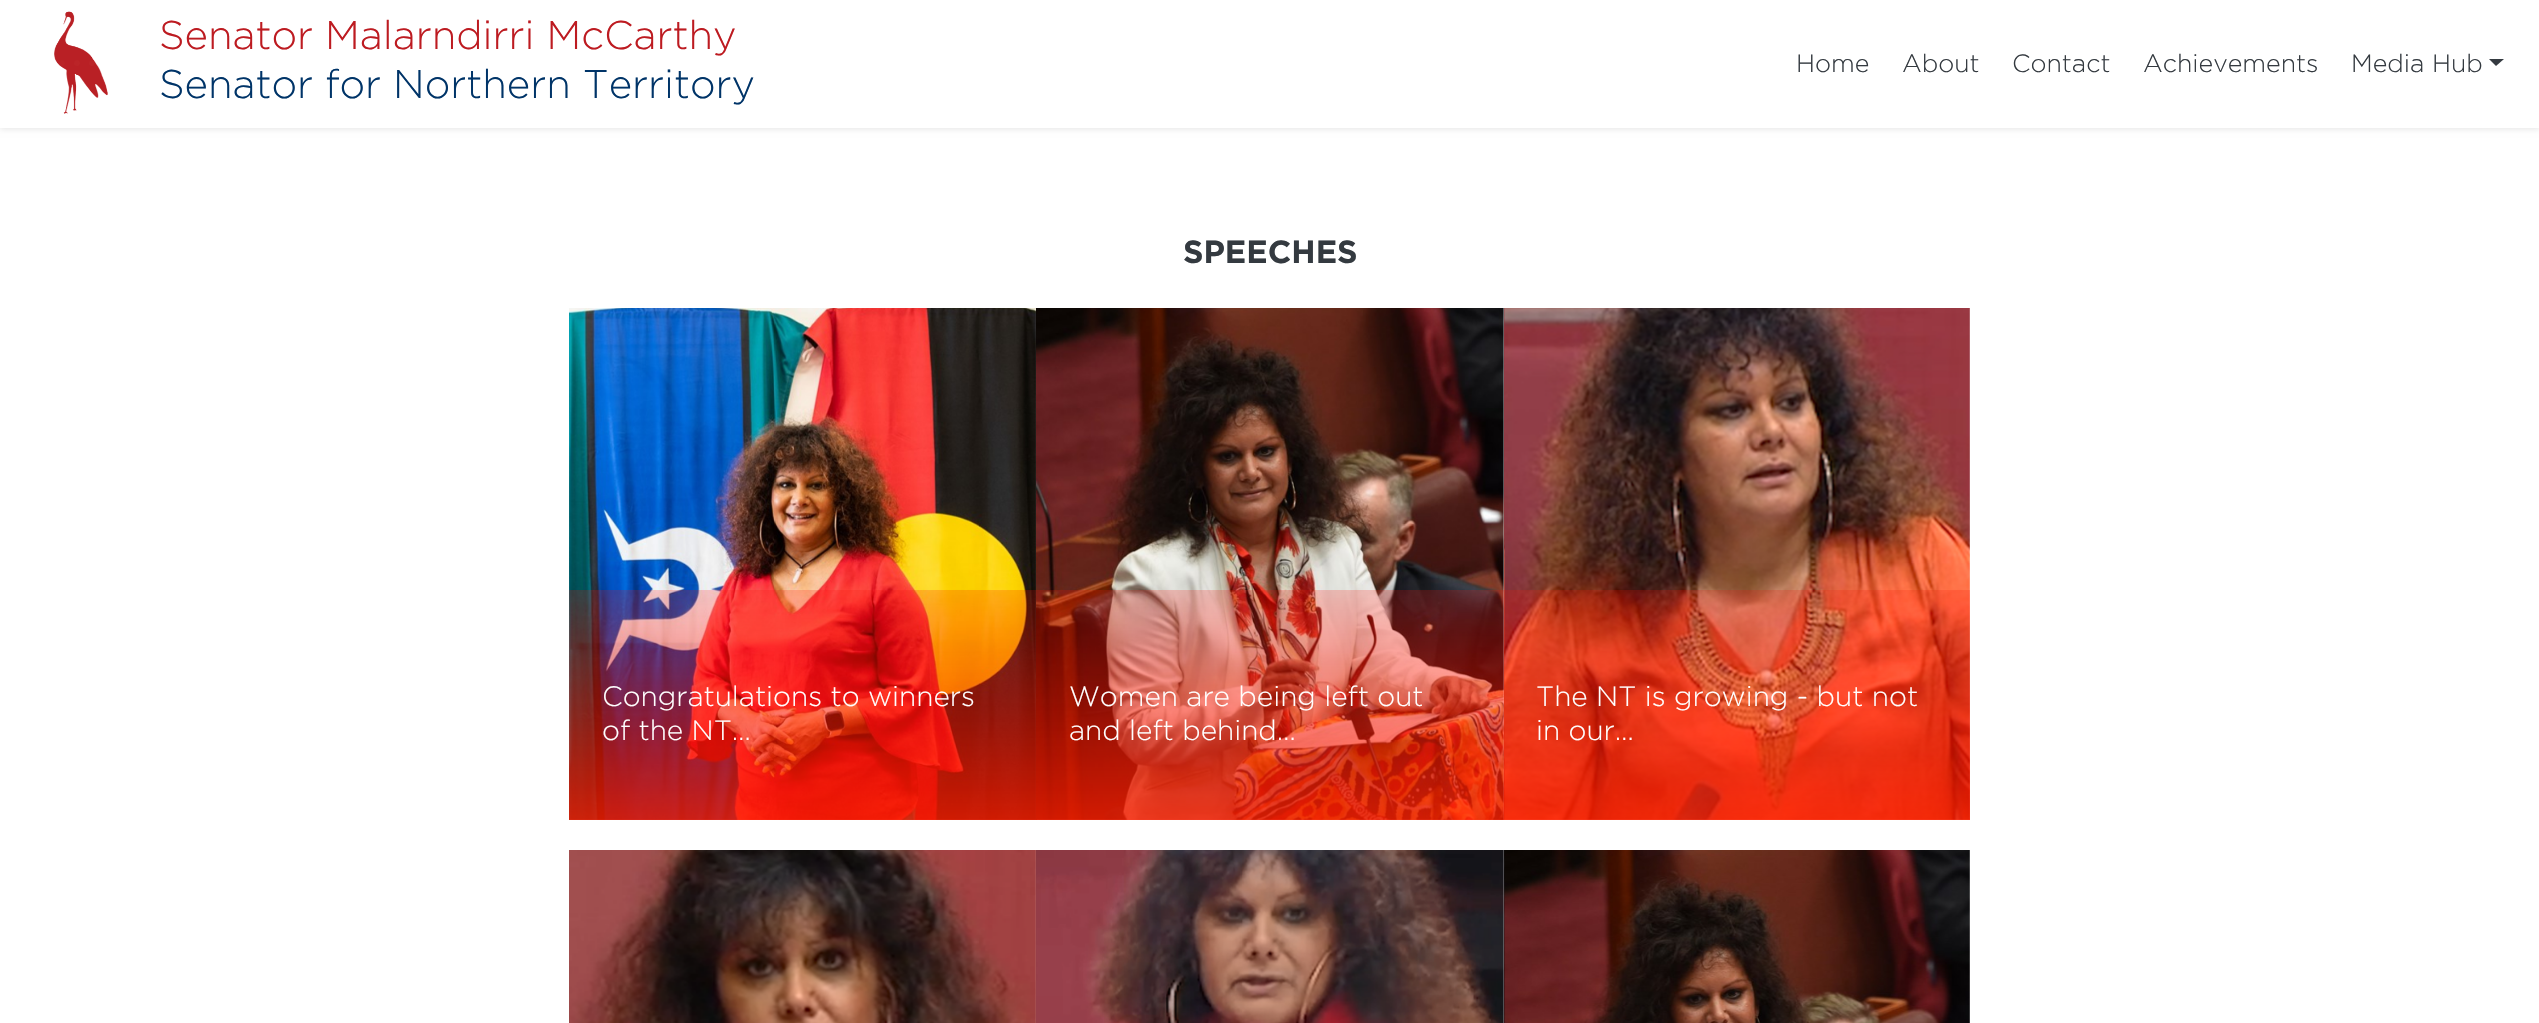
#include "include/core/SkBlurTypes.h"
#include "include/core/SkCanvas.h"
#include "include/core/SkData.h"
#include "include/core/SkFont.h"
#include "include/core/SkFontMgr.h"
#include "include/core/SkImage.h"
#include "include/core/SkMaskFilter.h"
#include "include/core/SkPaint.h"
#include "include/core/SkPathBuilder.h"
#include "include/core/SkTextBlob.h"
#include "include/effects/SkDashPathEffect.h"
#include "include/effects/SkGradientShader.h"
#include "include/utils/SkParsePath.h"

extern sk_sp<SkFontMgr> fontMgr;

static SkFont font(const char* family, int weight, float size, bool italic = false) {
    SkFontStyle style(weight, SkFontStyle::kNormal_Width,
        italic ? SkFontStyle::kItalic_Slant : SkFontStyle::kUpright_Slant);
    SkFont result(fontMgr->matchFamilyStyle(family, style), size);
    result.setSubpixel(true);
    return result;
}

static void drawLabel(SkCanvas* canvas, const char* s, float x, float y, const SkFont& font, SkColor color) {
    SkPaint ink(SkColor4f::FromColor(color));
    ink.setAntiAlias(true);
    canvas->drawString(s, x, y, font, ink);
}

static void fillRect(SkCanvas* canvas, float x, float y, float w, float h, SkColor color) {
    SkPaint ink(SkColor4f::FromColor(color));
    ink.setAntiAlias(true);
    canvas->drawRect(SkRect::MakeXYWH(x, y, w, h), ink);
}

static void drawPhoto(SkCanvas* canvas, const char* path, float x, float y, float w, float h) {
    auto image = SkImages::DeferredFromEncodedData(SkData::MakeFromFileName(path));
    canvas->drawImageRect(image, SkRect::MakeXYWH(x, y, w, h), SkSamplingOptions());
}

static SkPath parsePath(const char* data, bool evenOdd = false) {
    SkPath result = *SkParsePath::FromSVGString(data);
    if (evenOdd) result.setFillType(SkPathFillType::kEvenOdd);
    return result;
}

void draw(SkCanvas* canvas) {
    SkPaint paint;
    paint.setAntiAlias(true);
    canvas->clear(0xFFFFFFFF);
    paint.setColor(0x1A000000);
    paint.setMaskFilter(SkMaskFilter::MakeBlur(kNormal_SkBlurStyle, 3));
    canvas->drawRect(SkRect::MakeXYWH(0, 1, 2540, 128), paint);
    paint.setMaskFilter(nullptr);
    fillRect(canvas, 0, 0, 2539, 128, 0xFFFFFFFF);
    drawPhoto(canvas, "assets/img1.png", 54, 11, 54, 103);
    SkFont font1 = font("Gotham", 300, 40);
    drawLabel(canvas, "Senator Malarndirri McCarthy", 159, 49, font1, 0xFFBD1B21);
    drawLabel(canvas, "Senator for Northern Territory", 159, 98, font1, 0xFF003468);
    SkFont font2 = font("Gotham", 300, 25);
    drawLabel(canvas, "Home", 1796, 72, font2, 0xFF343A40);
    drawLabel(canvas, "About", 1902, 72, font2, 0xFF343A40);
    drawLabel(canvas, "Contact", 2012, 72, font2, 0xFF343A40);
    drawLabel(canvas, "Achievements", 2143, 72, font2, 0xFF343A40);
    drawLabel(canvas, "Media Hub", 2351, 72, font2, 0xFF343A40);
    paint.setColor(0xFF343A40);
    canvas->drawPath(parsePath("M2489 59H2504L2496 66Z"), paint);
    SkFont font3 = font("Gotham", 700, 32);
    drawLabel(canvas, "SPEECHES", 1183, 263, font3, 0xFF343A40);
    drawPhoto(canvas, "assets/img2.png", 569, 308, 468, 512);
    {
        const SkColor colors[] = {0x33FF0A00, 0xCCFF1E00};
        const float stops[] = {0, 1};
        const SkPoint ends[] = {{803, 590}, {803, 820}};
        paint.setShader(SkGradientShader::MakeLinear(ends, colors, stops, 2, SkTileMode::kClamp));
        paint.setAlpha(255);
    }
    canvas->drawRect(SkRect::MakeXYWH(569, 590, 467, 230), paint);
    SkFont font4 = font("Gotham", 300, 28);
    drawLabel(canvas, "Congratulations to winners", 602, 706, font4, 0xFFFFFFFF);
    drawLabel(canvas, "of the NT…", 602, 740, font4, 0xFFFFFFFF);
    drawPhoto(canvas, "assets/img3.png", 1036, 308, 468, 512);
    {
        const SkColor colors[] = {0x33FF0A00, 0xCCFF1E00};
        const float stops[] = {0, 1};
        const SkPoint ends[] = {{1270, 590}, {1270, 820}};
        paint.setShader(SkGradientShader::MakeLinear(ends, colors, stops, 2, SkTileMode::kClamp));
        paint.setAlpha(255);
    }
    canvas->drawRect(SkRect::MakeXYWH(1036, 590, 468, 230), paint);
    drawLabel(canvas, "Women are being left out", 1069, 706, font4, 0xFFFFFFFF);
    drawLabel(canvas, "and left behind…", 1069, 740, font4, 0xFFFFFFFF);
    drawPhoto(canvas, "assets/img4.png", 1504, 308, 466, 512);
    {
        const SkColor colors[] = {0x33FF0A00, 0xCCFF1E00};
        const float stops[] = {0, 1};
        const SkPoint ends[] = {{1737, 590}, {1737, 820}};
        paint.setShader(SkGradientShader::MakeLinear(ends, colors, stops, 2, SkTileMode::kClamp));
        paint.setAlpha(255);
    }
    canvas->drawRect(SkRect::MakeXYWH(1504, 590, 466, 230), paint);
    drawLabel(canvas, "The NT is growing - but not", 1536, 706, font4, 0xFFFFFFFF);
    drawLabel(canvas, "in our…", 1536, 740, font4, 0xFFFFFFFF);
    drawPhoto(canvas, "assets/img5.png", 569, 850, 467, 173);
    drawPhoto(canvas, "assets/img6.png", 1036, 850, 468, 173);
    drawPhoto(canvas, "assets/img7.png", 1504, 850, 466, 173);
}
